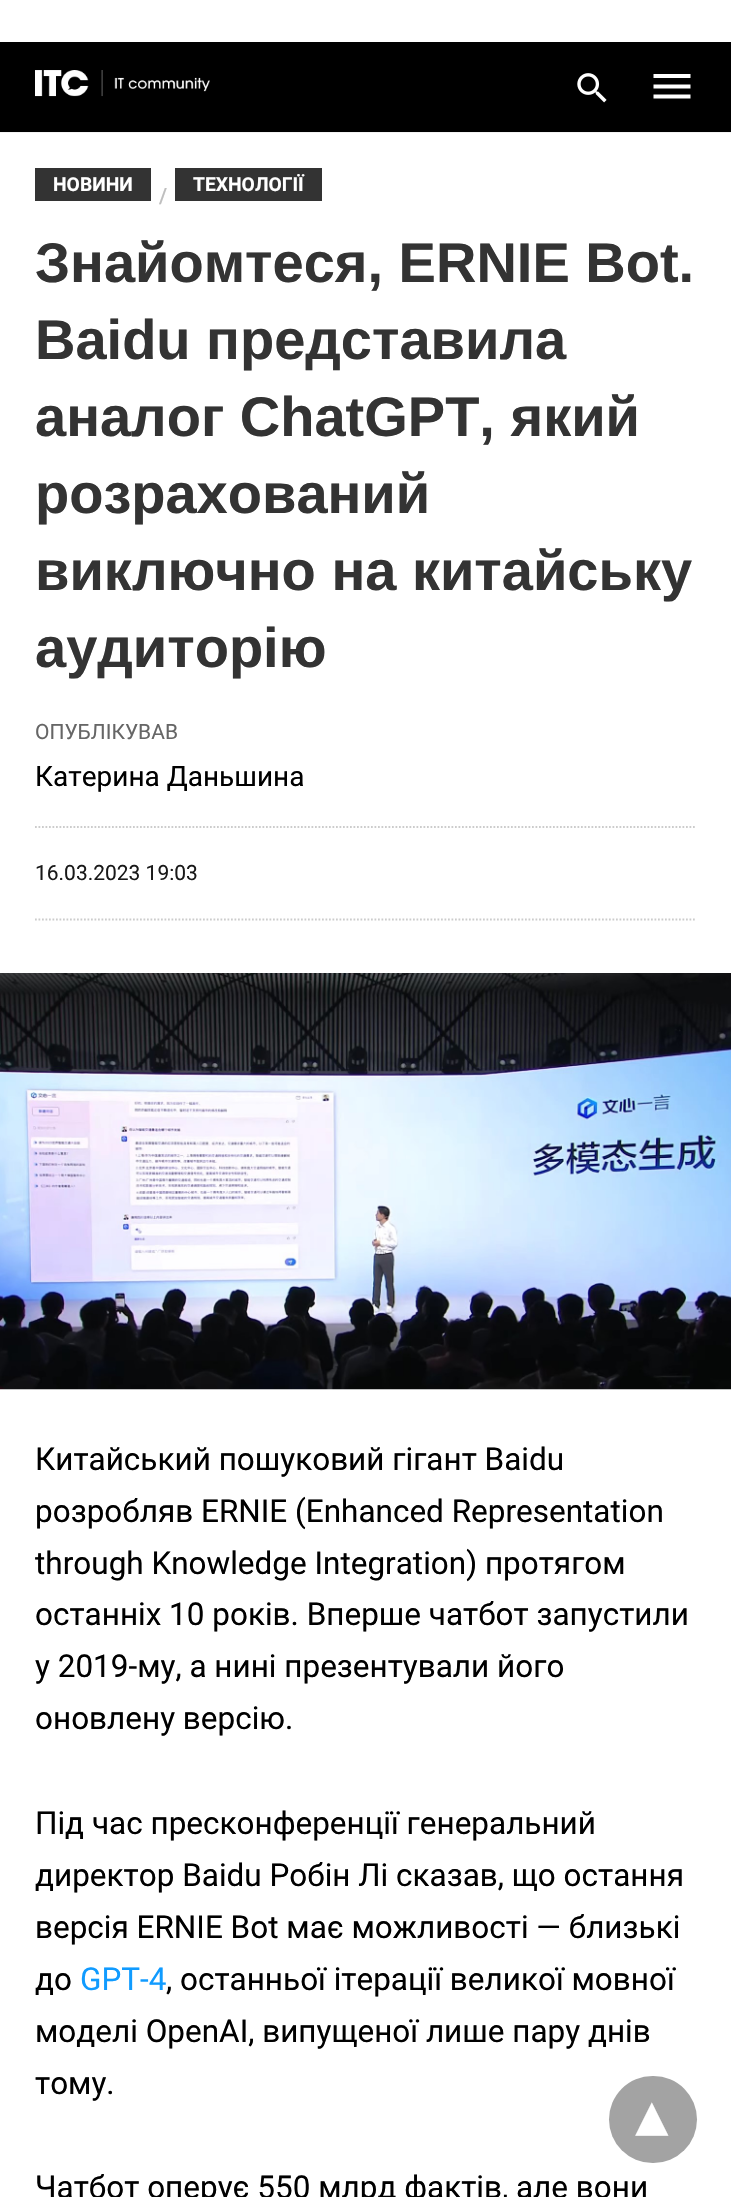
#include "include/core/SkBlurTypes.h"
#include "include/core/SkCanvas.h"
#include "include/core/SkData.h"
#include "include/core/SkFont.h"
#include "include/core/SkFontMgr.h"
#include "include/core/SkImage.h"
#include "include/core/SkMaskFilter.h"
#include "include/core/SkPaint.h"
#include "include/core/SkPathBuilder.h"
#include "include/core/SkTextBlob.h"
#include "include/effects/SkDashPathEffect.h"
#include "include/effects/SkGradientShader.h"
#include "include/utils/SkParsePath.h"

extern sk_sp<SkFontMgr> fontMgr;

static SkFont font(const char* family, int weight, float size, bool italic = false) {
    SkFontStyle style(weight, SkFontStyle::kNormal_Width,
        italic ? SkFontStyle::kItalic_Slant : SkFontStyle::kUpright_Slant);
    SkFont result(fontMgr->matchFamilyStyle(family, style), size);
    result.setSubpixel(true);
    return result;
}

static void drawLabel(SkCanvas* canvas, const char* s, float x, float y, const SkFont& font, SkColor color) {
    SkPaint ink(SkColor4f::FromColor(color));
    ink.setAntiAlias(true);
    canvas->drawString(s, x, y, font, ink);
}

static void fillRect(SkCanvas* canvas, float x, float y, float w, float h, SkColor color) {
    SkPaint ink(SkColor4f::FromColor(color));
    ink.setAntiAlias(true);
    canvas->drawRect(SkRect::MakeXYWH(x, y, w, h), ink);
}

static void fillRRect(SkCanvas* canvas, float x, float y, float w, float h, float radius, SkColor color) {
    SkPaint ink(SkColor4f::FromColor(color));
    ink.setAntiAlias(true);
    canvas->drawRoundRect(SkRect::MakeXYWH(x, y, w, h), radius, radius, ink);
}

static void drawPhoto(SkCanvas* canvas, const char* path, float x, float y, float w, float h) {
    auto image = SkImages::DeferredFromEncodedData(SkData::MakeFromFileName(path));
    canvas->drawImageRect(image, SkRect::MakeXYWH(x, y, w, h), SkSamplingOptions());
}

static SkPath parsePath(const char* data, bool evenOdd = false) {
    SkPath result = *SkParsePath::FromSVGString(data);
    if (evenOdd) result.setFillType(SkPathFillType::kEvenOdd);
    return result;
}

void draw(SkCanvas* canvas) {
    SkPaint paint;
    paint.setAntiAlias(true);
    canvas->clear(0xFFFFFFFF);
    fillRect(canvas, 0, 132, 731, 1, 0xFFF2F2F2);
    fillRect(canvas, 0, 42, 731, 90, 0xFF000000);
    drawPhoto(canvas, "assets/img1.png", 35, 70, 175, 27);
    drawPhoto(canvas, "assets/img2.png", 577, 73, 30, 30);
    paint.setColor(0xFFFFFFFF);
    canvas->drawPath(parsePath("M653.5 74H690.5V78H653.5ZM653.5 88.5V84.5H690.5V88.5ZM653.5 98.5V94.5H690.5V98.5Z"), paint);
    fillRect(canvas, 35, 168, 116, 33, 0xFF333333);
    SkFont font1 = font("Roboto", 700, 19.25f);
    drawLabel(canvas, "НОВИНИ", 53, 191, font1, 0xFFFFFFFF);
    SkFont font2 = font("Roboto", 500, 21);
    drawLabel(canvas, "/", 159, 203, font2, 0xFFBFBFBF);
    fillRect(canvas, 175, 168, 147, 33, 0xFF333333);
    drawLabel(canvas, "ТЕХНОЛОГІЇ", 193, 191, font1, 0xFFFFFFFF);
    SkFont font3 = font("Liberation Sans", 700, 56);
    drawLabel(canvas, "Знайомтеся, ERNIE Bot.", 35, 282, font3, 0xFF333333);
    drawLabel(canvas, "Baidu представила", 35, 359, font3, 0xFF333333);
    drawLabel(canvas, "аналог ChatGPT, який", 35, 436, font3, 0xFF333333);
    drawLabel(canvas, "розрахований", 35, 513, font3, 0xFF333333);
    drawLabel(canvas, "виключно на китайську", 35, 590, font3, 0xFF333333);
    drawLabel(canvas, "аудиторію", 35, 667, font3, 0xFF333333);
    paint.setStroke(true);
    paint.setStrokeWidth(1.8f);
    paint.setColor(0xFFCCCCCC);
    paint.setPathEffect(SkDashPathEffect::Make({{1.75f, 1.75f}}, 0));
    canvas->drawPath(parsePath("M35 827H696.5"), paint);
    paint.setPathEffect(nullptr);
    SkFont font4 = font("Roboto", 400, 21);
    drawLabel(canvas, "ОПУБЛІКУВАВ", 35, 739, font4, 0xFF666666);
    SkFont font5 = font("Roboto", 400, 28);
    drawLabel(canvas, "Катерина Даньшина", 35, 786, font5, 0xFF000000);
    paint.setPathEffect(SkDashPathEffect::Make({{1.75f, 1.75f}}, 0));
    canvas->drawPath(parsePath("M35 919.5H696.5"), paint);
    paint.setPathEffect(nullptr);
    drawLabel(canvas, "16.03.2023 19:03", 35, 880, font4, 0xFF191919);
    drawPhoto(canvas, "assets/img3.png", 0, 973, 731, 417);
    SkFont font6 = font("Roboto", 400, 31.5f);
    drawLabel(canvas, "Китайський пошуковий гігант Baidu", 35, 1470, font6, 0xFF000000);
    drawLabel(canvas, "розробляв ERNIE (Enhanced Representation", 35, 1522, font6, 0xFF000000);
    drawLabel(canvas, "through Knowledge Integration) протягом", 35, 1574, font6, 0xFF000000);
    drawLabel(canvas, "останніх 10 років. Вперше чатбот запустили", 35, 1625, font6, 0xFF000000);
    drawLabel(canvas, "у 2019-му, а нині презентували його", 35, 1677, font6, 0xFF000000);
    drawLabel(canvas, "оновлену версію.", 35, 1729, font6, 0xFF000000);
    drawLabel(canvas, "Під час пресконференції генеральний", 35, 1834, font6, 0xFF000000);
    drawLabel(canvas, "директор Baidu Робін Лі сказав, що остання", 35, 1886, font6, 0xFF000000);
    drawLabel(canvas, "версія ERNIE Bot має можливості — близькі", 35, 1938, font6, 0xFF000000);
    drawLabel(canvas, "до", 35, 1990, font6, 0xFF000000);
    drawLabel(canvas, "GPT-4", 80, 1990, font6, 0xFF109BFF);
    drawLabel(canvas, ", останньої ітерації великої мовної", 166, 1990, font6, 0xFF000000);
    drawLabel(canvas, "моделі OpenAI, випущеної лише пару днів", 35, 2042, font6, 0xFF000000);
    drawLabel(canvas, "тому.", 35, 2094, font6, 0xFF000000);
    drawLabel(canvas, "Чатбот оперує 550 млрд фактів, але вони", 35, 2198, font6, 0xFF000000);
    fillRRect(canvas, 609, 2076, 88, 87, 43.5f, 0xFFA3A3A3);
    SkFont font7 = font("DejaVu Sans", 700, 61);
    canvas->save();
    canvas->rotate(180, 668, 2103);
    drawLabel(canvas, "▾", 668, 2103, font7, 0xFFFFFFFF);
    canvas->restore();
}
